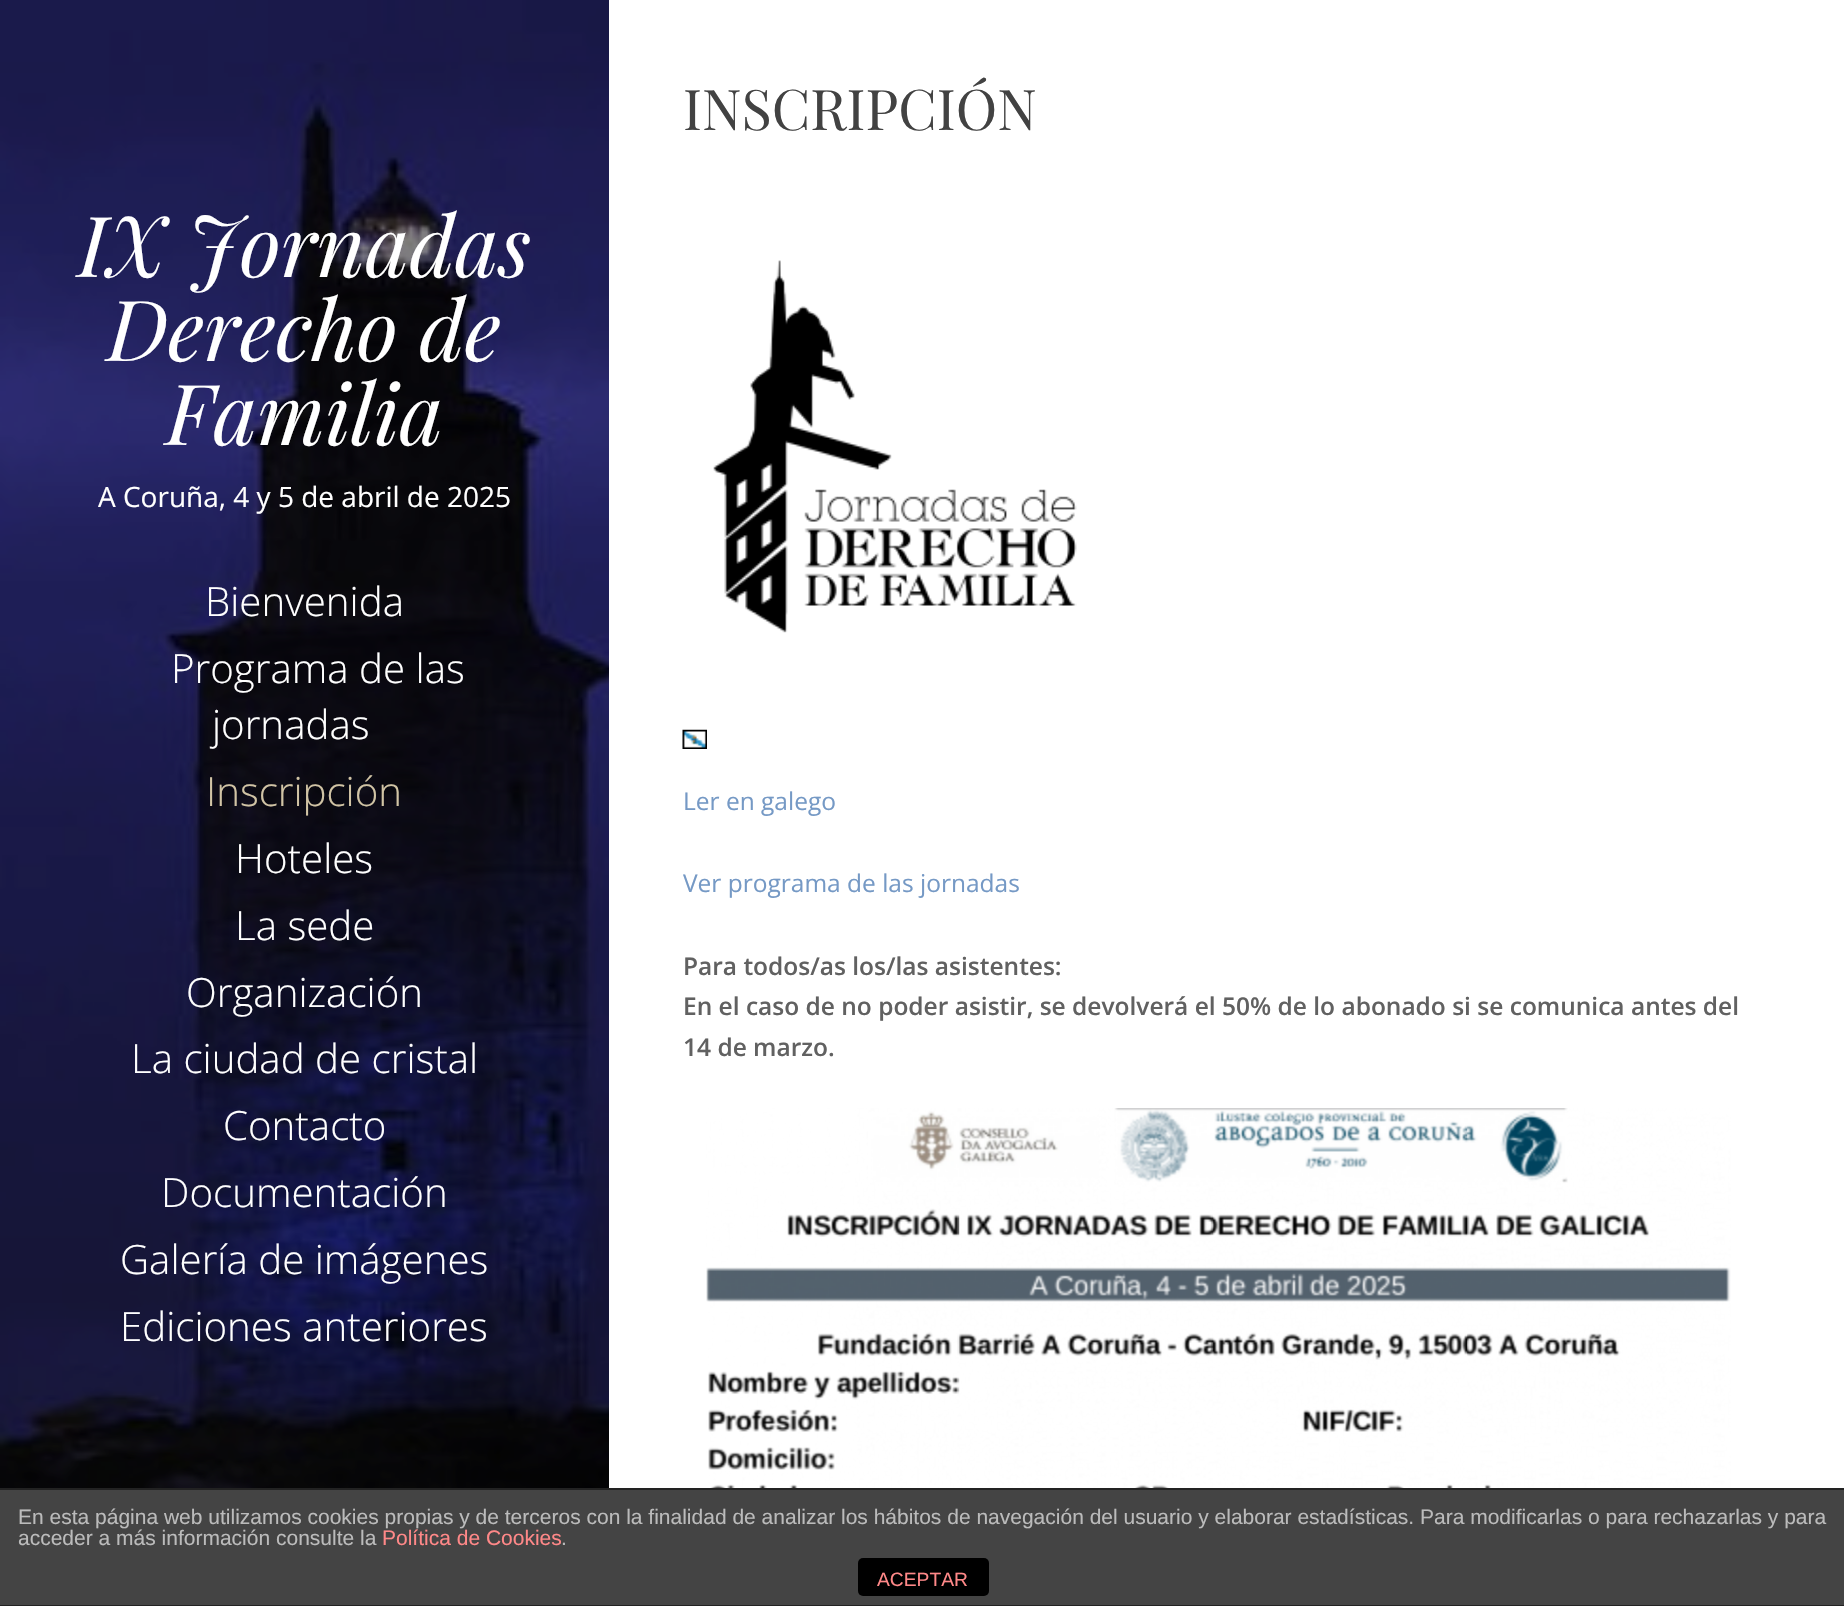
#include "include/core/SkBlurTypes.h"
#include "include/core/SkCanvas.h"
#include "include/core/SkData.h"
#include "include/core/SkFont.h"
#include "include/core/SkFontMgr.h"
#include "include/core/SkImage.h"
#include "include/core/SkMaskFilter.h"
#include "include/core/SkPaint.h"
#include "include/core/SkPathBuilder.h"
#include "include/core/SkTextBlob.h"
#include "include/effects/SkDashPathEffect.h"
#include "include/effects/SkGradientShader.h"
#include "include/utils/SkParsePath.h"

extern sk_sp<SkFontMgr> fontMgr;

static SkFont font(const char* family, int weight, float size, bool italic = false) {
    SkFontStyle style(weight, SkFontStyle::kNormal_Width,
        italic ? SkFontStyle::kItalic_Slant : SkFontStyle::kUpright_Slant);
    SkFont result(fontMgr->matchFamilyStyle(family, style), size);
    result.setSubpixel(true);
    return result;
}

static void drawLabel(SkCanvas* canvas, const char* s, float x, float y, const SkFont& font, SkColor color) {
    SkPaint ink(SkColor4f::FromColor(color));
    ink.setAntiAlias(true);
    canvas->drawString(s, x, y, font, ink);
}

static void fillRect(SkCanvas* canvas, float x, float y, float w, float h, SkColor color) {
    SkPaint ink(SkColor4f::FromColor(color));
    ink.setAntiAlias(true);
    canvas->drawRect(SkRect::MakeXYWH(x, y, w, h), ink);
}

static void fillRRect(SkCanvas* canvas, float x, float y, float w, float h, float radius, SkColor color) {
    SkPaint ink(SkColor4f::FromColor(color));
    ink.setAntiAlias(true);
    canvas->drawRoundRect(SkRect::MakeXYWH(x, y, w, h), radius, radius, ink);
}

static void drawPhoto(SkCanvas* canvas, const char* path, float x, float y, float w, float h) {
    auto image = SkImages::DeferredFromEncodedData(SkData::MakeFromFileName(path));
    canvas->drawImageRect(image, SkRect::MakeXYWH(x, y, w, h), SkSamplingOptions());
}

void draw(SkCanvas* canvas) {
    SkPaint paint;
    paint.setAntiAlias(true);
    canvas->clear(0xFFFFFFFF);
    drawPhoto(canvas, "assets/img1.png", 0, 0, 609, 1488);
    SkFont font1 = font("Playfair Display", 400, 84, true);
    drawLabel(canvas, "IX Jornadas", 78, 277, font1, 0xFFFFFFFF);
    drawLabel(canvas, "Derecho de", 107, 361, font1, 0xFFFFFFFF);
    drawLabel(canvas, "Familia", 166, 445, font1, 0xFFFFFFFF);
    SkFont font2 = font("Open Sans", 400, 28);
    drawLabel(canvas, "A Coruña, 4 y 5 de abril de 2025", 98, 507, font2, 0xFFFFFFFF);
    SkFont font3 = font("Open Sans", 300, 40.25f);
    drawLabel(canvas, "Bienvenida", 205, 616, font3, 0xFFFFFFFF);
    drawLabel(canvas, "Programa de las", 171, 683, font3, 0xFFFFFFFF);
    drawLabel(canvas, "jornadas", 212, 739, font3, 0xFFFFFFFF);
    drawLabel(canvas, "Inscripción", 206, 806, font3, 0xFFD1C4A5);
    drawLabel(canvas, "Hoteles", 235, 873, font3, 0xFFFFFFFF);
    drawLabel(canvas, "La sede", 235, 940, font3, 0xFFFFFFFF);
    drawLabel(canvas, "Organización", 186, 1007, font3, 0xFFFFFFFF);
    drawLabel(canvas, "La ciudad de cristal", 131, 1073, font3, 0xFFFFFFFF);
    drawLabel(canvas, "Contacto", 223, 1140, font3, 0xFFFFFFFF);
    drawLabel(canvas, "Documentación", 161, 1207, font3, 0xFFFFFFFF);
    drawLabel(canvas, "Galería de imágenes", 120, 1274, font3, 0xFFFFFFFF);
    drawLabel(canvas, "Ediciones anteriores", 120, 1341, font3, 0xFFFFFFFF);
    SkFont font4 = font("Playfair Display", 400, 56);
    drawLabel(canvas, "INSCRIPCIÓN", 683, 130, font4, 0xFF424242);
    drawPhoto(canvas, "assets/img2.png", 713, 260, 364, 373);
    drawPhoto(canvas, "assets/img3.png", 682, 729, 25, 20);
    SkFont font5 = font("Open Sans", 400, 24.5f);
    drawLabel(canvas, "Ler en galego", 683, 810, font5, 0xFF7599C5);
    drawLabel(canvas, "Ver programa de las jornadas", 683, 892, font5, 0xFF7599C5);
    SkFont font6 = font("Open Sans", 600, 24.5f);
    drawLabel(canvas, "Para todos/as los/las asistentes:", 683, 975, font6, 0xFF616161);
    drawLabel(canvas, "En el caso de no poder asistir, se devolverá el 50% de lo abonado si se comunica antes del", 683, 1015, font6, 0xFF616161);
    drawLabel(canvas, "14 de marzo.", 683, 1056, font6, 0xFF616161);
    drawPhoto(canvas, "assets/img4.png", 706, 1108, 1025, 380);
    fillRect(canvas, 0, 1490, 1844, 115, 0xFF444444);
    fillRect(canvas, 0, 1488, 1844, 2, 0xFF222222);
    fillRect(canvas, 0, 1605, 1844, 1, 0xFF222222);
    SkFont font7 = font("Liberation Sans", 400, 21);
    drawLabel(canvas, "En esta página web utilizamos cookies propias y de terceros con la finalidad de analizar los hábitos de navegación del usuario y elaborar estadísticas. Para modificarlas o para rechazarlas y para", 18, 1524, font7, 0xFFBBBBBB);
    drawLabel(canvas, "acceder a más información consulte la", 18, 1545, font7, 0xFFBBBBBB);
    drawLabel(canvas, "Política de Cookies", 382, 1545, font7, 0xFFFF8888);
    drawLabel(canvas, ".", 561, 1545, font7, 0xFFBBBBBB);
    fillRRect(canvas, 858, 1558, 131, 38, 5, 0xFF000000);
    SkFont font8 = font("Liberation Sans", 400, 19.25f);
    drawLabel(canvas, "ACEPTAR", 877, 1586, font8, 0xFFFF8888);
}
